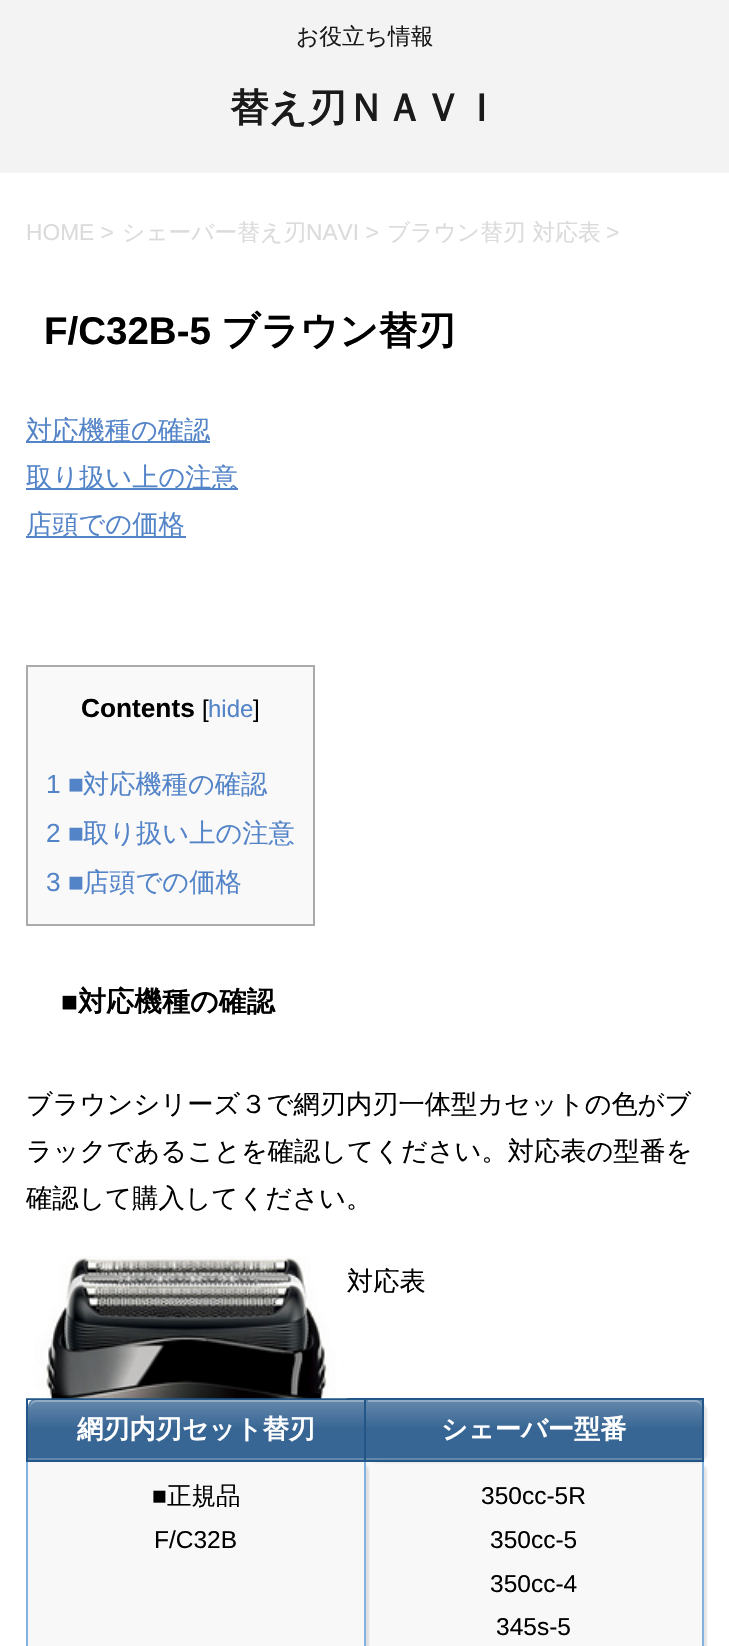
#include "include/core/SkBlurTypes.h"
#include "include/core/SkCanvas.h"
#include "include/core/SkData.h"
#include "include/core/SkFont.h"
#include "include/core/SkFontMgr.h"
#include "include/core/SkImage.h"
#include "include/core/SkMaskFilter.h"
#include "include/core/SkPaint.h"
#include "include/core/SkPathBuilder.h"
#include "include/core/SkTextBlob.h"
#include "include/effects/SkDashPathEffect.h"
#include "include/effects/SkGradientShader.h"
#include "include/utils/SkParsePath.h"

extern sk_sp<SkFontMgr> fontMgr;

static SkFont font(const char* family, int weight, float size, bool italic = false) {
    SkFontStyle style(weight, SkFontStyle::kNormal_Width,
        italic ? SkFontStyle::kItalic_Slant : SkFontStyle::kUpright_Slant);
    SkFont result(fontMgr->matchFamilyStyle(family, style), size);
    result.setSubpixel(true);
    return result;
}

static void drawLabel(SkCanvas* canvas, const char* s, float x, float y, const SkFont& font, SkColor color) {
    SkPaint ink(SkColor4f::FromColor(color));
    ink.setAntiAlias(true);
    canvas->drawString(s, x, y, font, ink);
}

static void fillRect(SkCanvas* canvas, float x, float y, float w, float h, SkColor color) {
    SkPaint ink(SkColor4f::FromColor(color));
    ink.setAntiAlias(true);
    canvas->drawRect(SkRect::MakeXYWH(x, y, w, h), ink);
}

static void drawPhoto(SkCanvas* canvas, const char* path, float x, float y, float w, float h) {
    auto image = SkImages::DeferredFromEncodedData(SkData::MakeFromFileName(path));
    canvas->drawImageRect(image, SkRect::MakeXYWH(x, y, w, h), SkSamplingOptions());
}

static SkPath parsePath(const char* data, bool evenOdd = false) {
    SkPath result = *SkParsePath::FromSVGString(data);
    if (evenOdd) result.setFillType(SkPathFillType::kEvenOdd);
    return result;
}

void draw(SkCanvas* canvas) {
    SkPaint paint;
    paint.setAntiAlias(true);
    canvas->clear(0xFFF3F3F3);
    SkFont font1 = font("WenQuanYi Zen Hei", 500, 22.75f);
    drawLabel(canvas, "お役立ち情報", 296, 44, font1, 0xFF1A1A1A);
    SkFont font2 = font("WenQuanYi Zen Hei", 700, 38.5f);
    drawLabel(canvas, "替え刃ＮＡＶＩ", 230, 121, font2, 0xFF1A1A1A);
    fillRect(canvas, 0, 173, 729, 1473, 0xFFFFFFFF);
    SkFont font3 = font("Liberation Sans", 400, 22.75f);
    drawLabel(canvas, "HOME >", 26, 240, font3, 0xFFDBDBDB);
    drawLabel(canvas, "シェーバー替え刃", 122, 240, font1, 0xFFDBDBDB);
    drawLabel(canvas, "NAVI >", 306, 240, font3, 0xFFDBDBDB);
    drawLabel(canvas, "ブラウン替刃 対応表", 387, 240, font1, 0xFFDBDBDB);
    drawLabel(canvas, ">", 606, 240, font3, 0xFFDBDBDB);
    SkFont font4 = font("Liberation Sans", 700, 38.5f);
    drawLabel(canvas, "F/C32B-5", 44, 344, font4, 0xFF000000);
    drawLabel(canvas, "ブラウン替刃", 221, 344, font2, 0xFF000000);
    fillRect(canvas, 26, 441, 184, 2, 0xFF5484C8);
    SkFont font5 = font("WenQuanYi Zen Hei", 500, 26.25f);
    drawLabel(canvas, "対応機種の確認", 26, 439, font5, 0xFF5484C8);
    fillRect(canvas, 26, 488, 212, 2, 0xFF5484C8);
    drawLabel(canvas, "取り扱い上の注意", 26, 486, font5, 0xFF5484C8);
    fillRect(canvas, 26, 536, 160, 2, 0xFF5484C8);
    drawLabel(canvas, "店頭での価格", 26, 533, font5, 0xFF5484C8);
    paint.setColor(0xFFF9F9F9);
    canvas->drawRect(SkRect::MakeXYWH(27, 666, 287, 259), paint);
    paint.setStroke(true);
    paint.setStrokeWidth(2);
    paint.setColor(0xFFAAAAAA);
    canvas->drawRect(SkRect::MakeXYWH(27, 666, 287, 259), paint);
    SkFont font6 = font("Liberation Sans", 700, 26.25f);
    drawLabel(canvas, "Contents", 81, 717, font6, 0xFF000000);
    SkFont font7 = font("Liberation Sans", 400, 24);
    drawLabel(canvas, "[", 202, 717, font7, 0xFF000000);
    drawLabel(canvas, "hide", 208, 717, font7, 0xFF5484C8);
    drawLabel(canvas, "]", 253, 717, font7, 0xFF000000);
    SkFont font8 = font("Liberation Sans", 400, 26.25f);
    drawLabel(canvas, "1 ■", 46, 793, font8, 0xFF5484C8);
    drawLabel(canvas, "対応機種の確認", 83, 793, font5, 0xFF5484C8);
    drawLabel(canvas, "2 ■", 46, 842, font8, 0xFF5484C8);
    drawLabel(canvas, "取り扱い上の注意", 83, 842, font5, 0xFF5484C8);
    drawLabel(canvas, "3 ■", 46, 891, font8, 0xFF5484C8);
    drawLabel(canvas, "店頭での価格", 83, 891, font5, 0xFF5484C8);
    SkFont font9 = font("Liberation Sans", 700, 28);
    drawLabel(canvas, "■", 61, 1011, font9, 0xFF000000);
    SkFont font10 = font("WenQuanYi Zen Hei", 700, 28);
    drawLabel(canvas, "対応機種の確認", 78, 1011, font10, 0xFF000000);
    drawLabel(canvas, "ブラウンシリーズ３で網刃内刃一体型カセットの色がブ", 26, 1113, font5, 0xFF000000);
    drawLabel(canvas, "ラックであることを確認してください。対応表の型番を", 26, 1160, font5, 0xFF000000);
    drawLabel(canvas, "確認して購入してください。", 26, 1207, font5, 0xFF000000);
    paint.setStroke(false);
    {
        const SkColor colors[] = {0xFF6488AC, 0xFF386694};
        const float stops[] = {0, 1};
        const SkPoint ends[] = {{366, 1458}, {366, 1487}};
        paint.setShader(SkGradientShader::MakeLinear(ends, colors, stops, 2, SkTileMode::kClamp));
        paint.setAlpha(255);
    }
    canvas->drawRect(SkRect::MakeXYWH(28, 1458, 338, 2), paint);
    canvas->save();
    canvas->clipPath(parsePath("M37 1398H366V1460H28V1407C28 1402 32 1398 37 1398Z"), true);
    {
        const SkColor colors[] = {0xFF6488AC, 0xFF386694};
        const float stops[] = {0, 1};
        const SkPoint ends[] = {{366, 1400}, {366, 1429}};
        paint.setShader(SkGradientShader::MakeLinear(ends, colors, stops, 2, SkTileMode::kClamp));
        paint.setAlpha(255);
    }
    canvas->drawRect(SkRect::MakeXYWH(28, 1400, 336, 58), paint);
    canvas->restore();
    paint.setShader(nullptr);
    paint.setColor(0x4DFFFFFF);
    canvas->drawPath(parsePath("M37 1402H366V1400H36C31 1401 30 1405 30 1409C30 1405 33 1402 37 1402Z"), paint);
    canvas->save();
    canvas->clipPath(parsePath("M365 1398H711V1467H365ZM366 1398H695C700 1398 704 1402 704 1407V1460H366Z", true), true);
    paint.setColor(0x1A000000);
    paint.setMaskFilter(SkMaskFilter::MakeBlur(kNormal_SkBlurStyle, 1));
    canvas->drawRoundRect(SkRect::MakeXYWH(369, 1402, 338, 61), 9, 9, paint);
    paint.setMaskFilter(nullptr);
    canvas->restore();
    fillRect(canvas, 364, 1398, 340, 2, 0xFF225588);
    {
        const SkColor colors[] = {0xB3225588, 0xE6225588};
        const float stops[] = {0, 1};
        const SkPoint ends[] = {{702, 1458}, {702, 1487}};
        paint.setShader(SkGradientShader::MakeLinear(ends, colors, stops, 2, SkTileMode::kClamp));
        paint.setAlpha(255);
    }
    canvas->drawRect(SkRect::MakeXYWH(366, 1458, 338, 2), paint);
    fillRect(canvas, 28, 1462, 674, 184, 0x33DCDCDC);
    canvas->save();
    canvas->clipRect(SkRect::MakeXYWH(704, 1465, 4, 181));
    paint.setShader(nullptr);
    paint.setColor(0x1A000000);
    paint.setMaskFilter(SkMaskFilter::MakeBlur(kNormal_SkBlurStyle, 1));
    canvas->drawRoundRect(SkRect::MakeXYWH(369, 1463, 338, 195), 9, 9, paint);
    paint.setMaskFilter(nullptr);
    canvas->restore();
    fillRect(canvas, 702, 1460, 2, 186, 0xFF84B2E0);
    fillRect(canvas, 702, 1398, 2, 63, 0xFF225588);
    canvas->save();
    canvas->clipRect(SkRect::MakeXYWH(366, 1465, 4, 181));
    paint.setMaskFilter(SkMaskFilter::MakeBlur(kNormal_SkBlurStyle, 1));
    canvas->drawRoundRect(SkRect::MakeXYWH(32, 1463, 337, 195), 9, 9, paint);
    paint.setMaskFilter(nullptr);
    canvas->restore();
    fillRect(canvas, 364, 1460, 2, 186, 0xFF84B2E0);
    fillRect(canvas, 364, 1460, 340, 2, 0xFF225588);
    fillRect(canvas, 364, 1398, 2, 63, 0xFF225588);
    fillRect(canvas, 26, 1398, 340, 2, 0xFF225588);
    fillRect(canvas, 26, 1460, 2, 186, 0xFF84B2E0);
    fillRect(canvas, 26, 1460, 340, 2, 0xFF225588);
    fillRect(canvas, 26, 1398, 2, 63, 0xFF225588);
    drawPhoto(canvas, "assets/img1.png", 26, 1256, 321, 143);
    drawLabel(canvas, "対応表", 347, 1290, font5, 0xFF000000);
    SkFont font11 = font("WenQuanYi Zen Hei", 700, 26.25f);
    drawLabel(canvas, "網刃内刃セット替刃", 77, 1438, font11, 0xFFFFFFFF);
    {
        const SkColor colors[] = {0xB3225588, 0xE6225588};
        const float stops[] = {0, 1};
        const SkPoint ends[] = {{702, 1400}, {702, 1429}};
        paint.setShader(SkGradientShader::MakeLinear(ends, colors, stops, 2, SkTileMode::kClamp));
        paint.setAlpha(255);
    }
    canvas->drawRect(SkRect::MakeXYWH(366, 1400, 336, 58), paint);
    paint.setShader(nullptr);
    paint.setColor(0x4DFFFFFF);
    canvas->drawPath(parsePath("M368 1402H695C699 1402 702 1405 702 1409C702 1405 701 1401 696 1400H368Z"), paint);
    drawLabel(canvas, "シェーバー型番", 441, 1438, font11, 0xFFFFFFFF);
    SkFont font12 = font("Liberation Sans", 400, 24.5f);
    drawLabel(canvas, "■", 152, 1504, font12, 0xFF000000);
    SkFont font13 = font("WenQuanYi Zen Hei", 500, 24.5f);
    drawLabel(canvas, "正規品", 167, 1504, font13, 0xFF000000);
    drawLabel(canvas, "F/C32B", 154, 1548, font12, 0xFF000000);
    drawLabel(canvas, "350cc-5R", 481, 1504, font12, 0xFF000000);
    drawLabel(canvas, "350cc-5", 490, 1548, font12, 0xFF000000);
    drawLabel(canvas, "350cc-4", 490, 1592, font12, 0xFF000000);
    drawLabel(canvas, "345s-5", 496, 1635, font12, 0xFF000000);
}
